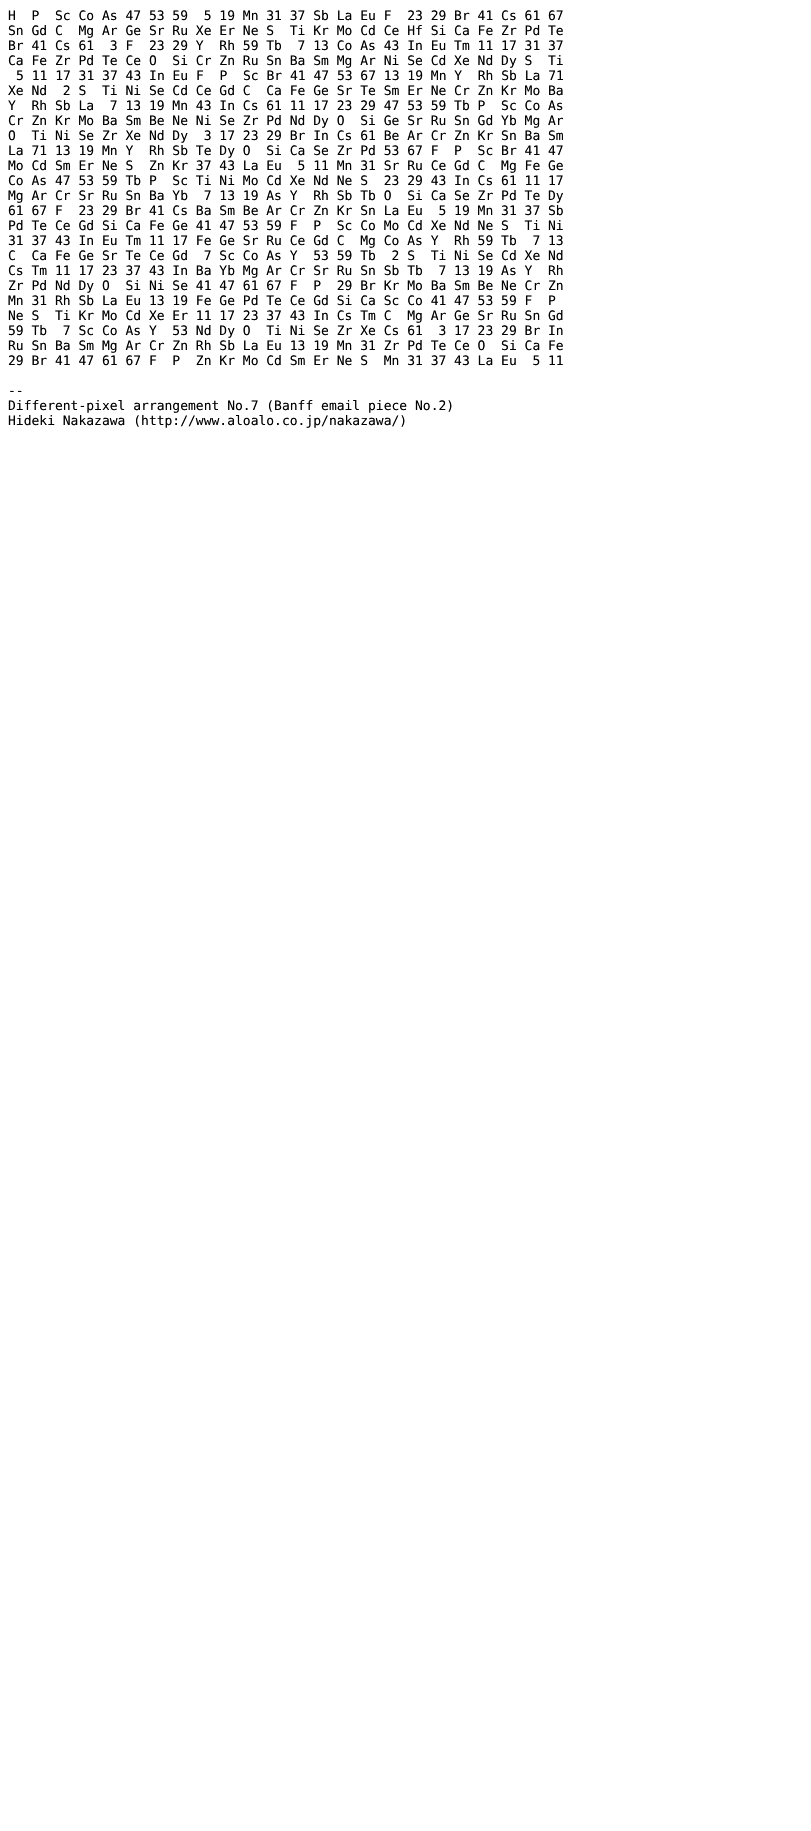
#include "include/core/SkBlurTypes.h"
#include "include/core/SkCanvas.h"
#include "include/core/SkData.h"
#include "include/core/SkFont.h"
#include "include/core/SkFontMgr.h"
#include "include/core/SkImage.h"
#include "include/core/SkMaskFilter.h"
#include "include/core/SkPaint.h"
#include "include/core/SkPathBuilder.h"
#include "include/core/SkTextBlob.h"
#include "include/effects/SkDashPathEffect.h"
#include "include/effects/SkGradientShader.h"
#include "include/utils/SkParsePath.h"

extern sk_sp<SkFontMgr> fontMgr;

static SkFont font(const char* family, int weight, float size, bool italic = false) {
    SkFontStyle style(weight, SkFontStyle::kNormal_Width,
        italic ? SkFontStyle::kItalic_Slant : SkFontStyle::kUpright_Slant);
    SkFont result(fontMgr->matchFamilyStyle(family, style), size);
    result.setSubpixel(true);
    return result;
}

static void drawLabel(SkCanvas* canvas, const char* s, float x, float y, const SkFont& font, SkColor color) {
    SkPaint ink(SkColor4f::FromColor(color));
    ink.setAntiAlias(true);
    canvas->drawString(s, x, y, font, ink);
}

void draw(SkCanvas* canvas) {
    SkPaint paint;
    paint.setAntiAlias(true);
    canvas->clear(0xFFFFFFFF);
    SkFont font1 = font("DejaVu Sans Mono", 400, 13);
    drawLabel(canvas, "H  P  Sc Co As 47 53 59  5 19 Mn 31 37 Sb La Eu F  23 29 Br 41 Cs 61 67", 8, 20, font1, 0xFF000000);
    drawLabel(canvas, "Sn Gd C  Mg Ar Ge Sr Ru Xe Er Ne S  Ti Kr Mo Cd Ce Hf Si Ca Fe Zr Pd Te", 8, 35, font1, 0xFF000000);
    drawLabel(canvas, "Br 41 Cs 61  3 F  23 29 Y  Rh 59 Tb  7 13 Co As 43 In Eu Tm 11 17 31 37", 8, 50, font1, 0xFF000000);
    drawLabel(canvas, "Ca Fe Zr Pd Te Ce O  Si Cr Zn Ru Sn Ba Sm Mg Ar Ni Se Cd Xe Nd Dy S  Ti", 8, 65, font1, 0xFF000000);
    drawLabel(canvas, "5 11 17 31 37 43 In Eu F  P  Sc Br 41 47 53 67 13 19 Mn Y  Rh Sb La 71", 16, 80, font1, 0xFF000000);
    drawLabel(canvas, "Xe Nd  2 S  Ti Ni Se Cd Ce Gd C  Ca Fe Ge Sr Te Sm Er Ne Cr Zn Kr Mo Ba", 8, 95, font1, 0xFF000000);
    drawLabel(canvas, "Y  Rh Sb La  7 13 19 Mn 43 In Cs 61 11 17 23 29 47 53 59 Tb P  Sc Co As", 8, 110, font1, 0xFF000000);
    drawLabel(canvas, "Cr Zn Kr Mo Ba Sm Be Ne Ni Se Zr Pd Nd Dy O  Si Ge Sr Ru Sn Gd Yb Mg Ar", 8, 125, font1, 0xFF000000);
    drawLabel(canvas, "O  Ti Ni Se Zr Xe Nd Dy  3 17 23 29 Br In Cs 61 Be Ar Cr Zn Kr Sn Ba Sm", 8, 140, font1, 0xFF000000);
    drawLabel(canvas, "La 71 13 19 Mn Y  Rh Sb Te Dy O  Si Ca Se Zr Pd 53 67 F  P  Sc Br 41 47", 8, 155, font1, 0xFF000000);
    drawLabel(canvas, "Mo Cd Sm Er Ne S  Zn Kr 37 43 La Eu  5 11 Mn 31 Sr Ru Ce Gd C  Mg Fe Ge", 8, 170, font1, 0xFF000000);
    drawLabel(canvas, "Co As 47 53 59 Tb P  Sc Ti Ni Mo Cd Xe Nd Ne S  23 29 43 In Cs 61 11 17", 8, 185, font1, 0xFF000000);
    drawLabel(canvas, "Mg Ar Cr Sr Ru Sn Ba Yb  7 13 19 As Y  Rh Sb Tb O  Si Ca Se Zr Pd Te Dy", 8, 200, font1, 0xFF000000);
    drawLabel(canvas, "61 67 F  23 29 Br 41 Cs Ba Sm Be Ar Cr Zn Kr Sn La Eu  5 19 Mn 31 37 Sb", 8, 215, font1, 0xFF000000);
    drawLabel(canvas, "Pd Te Ce Gd Si Ca Fe Ge 41 47 53 59 F  P  Sc Co Mo Cd Xe Nd Ne S  Ti Ni", 8, 230, font1, 0xFF000000);
    drawLabel(canvas, "31 37 43 In Eu Tm 11 17 Fe Ge Sr Ru Ce Gd C  Mg Co As Y  Rh 59 Tb  7 13", 8, 245, font1, 0xFF000000);
    drawLabel(canvas, "C  Ca Fe Ge Sr Te Ce Gd  7 Sc Co As Y  53 59 Tb  2 S  Ti Ni Se Cd Xe Nd", 8, 260, font1, 0xFF000000);
    drawLabel(canvas, "Cs Tm 11 17 23 37 43 In Ba Yb Mg Ar Cr Sr Ru Sn Sb Tb  7 13 19 As Y  Rh", 8, 275, font1, 0xFF000000);
    drawLabel(canvas, "Zr Pd Nd Dy O  Si Ni Se 41 47 61 67 F  P  29 Br Kr Mo Ba Sm Be Ne Cr Zn", 8, 290, font1, 0xFF000000);
    drawLabel(canvas, "Mn 31 Rh Sb La Eu 13 19 Fe Ge Pd Te Ce Gd Si Ca Sc Co 41 47 53 59 F  P", 8, 305, font1, 0xFF000000);
    drawLabel(canvas, "Ne S  Ti Kr Mo Cd Xe Er 11 17 23 37 43 In Cs Tm C  Mg Ar Ge Sr Ru Sn Gd", 8, 320, font1, 0xFF000000);
    drawLabel(canvas, "59 Tb  7 Sc Co As Y  53 Nd Dy O  Ti Ni Se Zr Xe Cs 61  3 17 23 29 Br In", 8, 335, font1, 0xFF000000);
    drawLabel(canvas, "Ru Sn Ba Sm Mg Ar Cr Zn Rh Sb La Eu 13 19 Mn 31 Zr Pd Te Ce O  Si Ca Fe", 8, 350, font1, 0xFF000000);
    drawLabel(canvas, "29 Br 41 47 61 67 F  P  Zn Kr Mo Cd Sm Er Ne S  Mn 31 37 43 La Eu  5 11", 8, 365, font1, 0xFF000000);
    drawLabel(canvas, "--", 8, 395, font1, 0xFF000000);
    drawLabel(canvas, "Different-pixel arrangement No.7 (Banff email piece No.2)", 8, 410, font1, 0xFF000000);
    drawLabel(canvas, "Hideki Nakazawa (http://www.aloalo.co.jp/nakazawa/)", 8, 425, font1, 0xFF000000);
}
